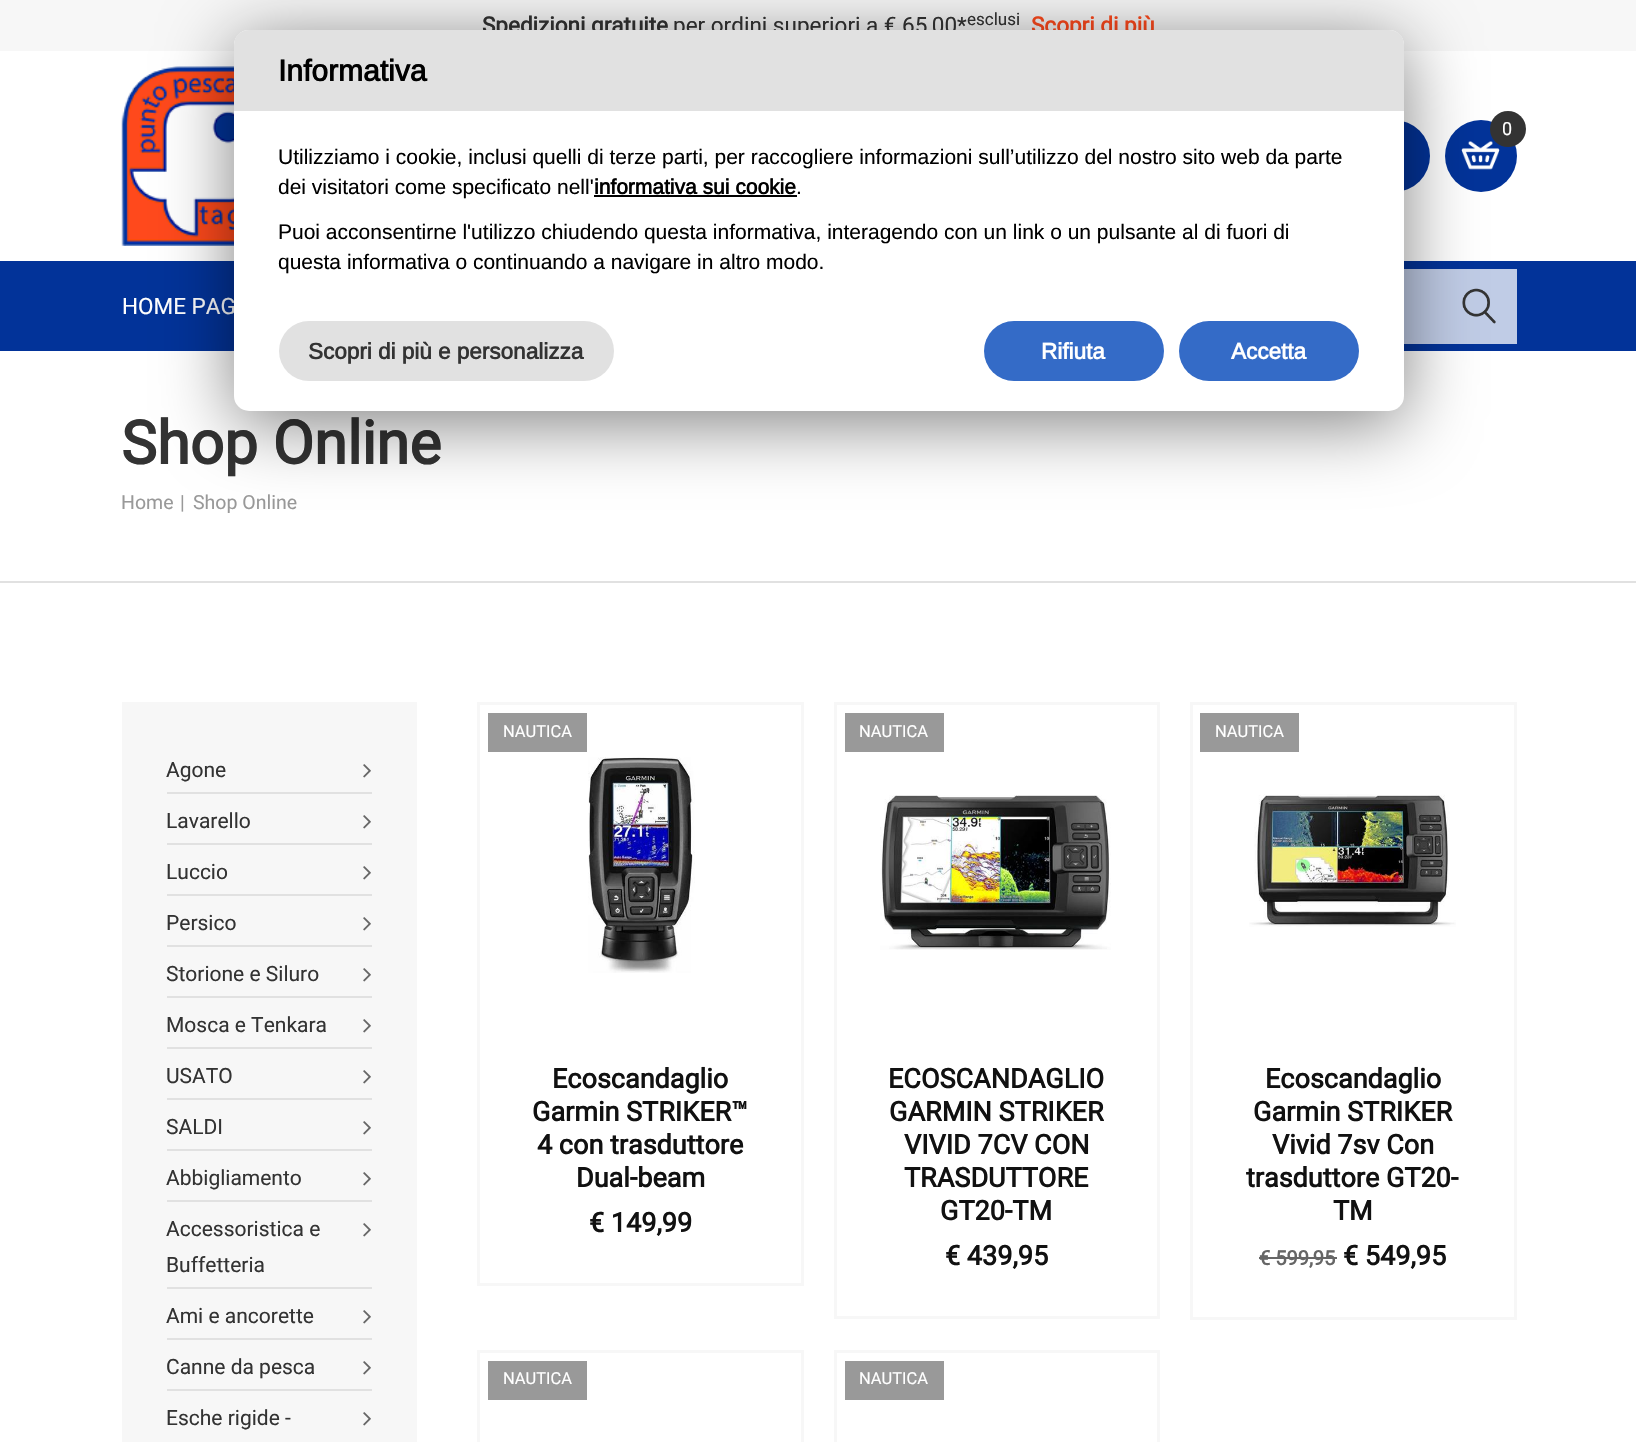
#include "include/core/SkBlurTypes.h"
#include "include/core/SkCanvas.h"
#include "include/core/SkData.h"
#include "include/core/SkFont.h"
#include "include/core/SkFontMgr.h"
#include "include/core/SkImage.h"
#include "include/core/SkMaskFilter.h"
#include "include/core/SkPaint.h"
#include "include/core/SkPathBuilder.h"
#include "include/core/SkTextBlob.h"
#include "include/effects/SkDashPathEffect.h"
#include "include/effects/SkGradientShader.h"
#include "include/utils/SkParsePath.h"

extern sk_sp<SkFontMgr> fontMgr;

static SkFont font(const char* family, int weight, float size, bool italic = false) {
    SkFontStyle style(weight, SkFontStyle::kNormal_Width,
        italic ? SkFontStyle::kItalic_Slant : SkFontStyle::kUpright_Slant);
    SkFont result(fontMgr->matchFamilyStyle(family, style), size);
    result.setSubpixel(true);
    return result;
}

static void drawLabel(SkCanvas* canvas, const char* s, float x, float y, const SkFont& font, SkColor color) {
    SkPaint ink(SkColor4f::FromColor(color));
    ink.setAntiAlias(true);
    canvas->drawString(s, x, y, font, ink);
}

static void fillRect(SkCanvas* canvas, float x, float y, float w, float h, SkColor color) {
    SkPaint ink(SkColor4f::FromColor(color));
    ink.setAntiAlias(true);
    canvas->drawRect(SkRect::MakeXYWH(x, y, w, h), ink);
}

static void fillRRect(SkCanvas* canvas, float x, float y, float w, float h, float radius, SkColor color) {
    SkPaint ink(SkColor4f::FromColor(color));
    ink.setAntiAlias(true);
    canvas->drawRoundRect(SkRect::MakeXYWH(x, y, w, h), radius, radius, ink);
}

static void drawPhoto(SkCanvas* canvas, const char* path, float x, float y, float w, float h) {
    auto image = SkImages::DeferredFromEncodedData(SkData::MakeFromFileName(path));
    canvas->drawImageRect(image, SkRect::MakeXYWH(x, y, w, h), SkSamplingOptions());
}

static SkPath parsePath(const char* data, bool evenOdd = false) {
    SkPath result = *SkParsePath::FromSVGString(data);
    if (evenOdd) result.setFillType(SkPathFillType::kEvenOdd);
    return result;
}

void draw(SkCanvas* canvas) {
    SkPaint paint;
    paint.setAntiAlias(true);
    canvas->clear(0xFFFFFFFF);
    fillRect(canvas, 0, 0, 1636, 51, 0xFFF7F7F7);
    SkFont font1 = font("Roboto", 700, 22.5f);
    drawLabel(canvas, "Spedizioni gratuite", 482, 33, font1, 0xFF333333);
    SkFont font2 = font("Roboto", 400, 22.5f);
    drawLabel(canvas, "per ordini superiori a € 65,00*", 673, 33, font2, 0xFF333333);
    SkFont font3 = font("Roboto", 400, 17);
    drawLabel(canvas, "esclusi", 967, 25, font3, 0xFF333333);
    drawLabel(canvas, "Scopri di più", 1031, 33, font1, 0xFFFF491C);
    drawPhoto(canvas, "assets/img1.png", 121, 66, 113, 180);
    paint.setColor(0xFF023399);
    canvas->drawCircle(1394, 156, 36, paint);
    canvas->drawCircle(1481, 156, 36, paint);
    drawPhoto(canvas, "assets/img2.png", 1461, 141, 39, 29);
    paint.setColor(0xFF333333);
    canvas->drawCircle(1508, 129, 18, paint);
    SkFont font4 = font("Roboto", 400, 18);
    drawLabel(canvas, "0", 1502, 135, font4, 0xFFFFFFFF);
    fillRect(canvas, 0, 261, 1636, 90, 0xFF023399);
    drawLabel(canvas, "HOME PAG", 122, 314, font2, 0xFFFFFFFF);
    fillRect(canvas, 1404, 269, 113, 75, 0xFFC0CCE6);
    drawPhoto(canvas, "assets/img3.png", 1462, 288, 34, 36);
    fillRect(canvas, 0, 581, 1636, 2, 0xFFE1E1E1);
    SkFont font5 = font("Roboto", 700, 60);
    drawLabel(canvas, "Shop Online", 121, 464, font5, 0xFF333333);
    SkFont font6 = font("Roboto", 400, 19.5f);
    drawLabel(canvas, "Home", 121, 509, font6, 0xFF999999);
    drawLabel(canvas, "|", 180, 509, font6, 0xFF999999);
    drawLabel(canvas, "Shop Online", 193, 509, font6, 0xFF999999);
    fillRect(canvas, 122, 702, 295, 740, 0xFFF7F7F7);
    fillRect(canvas, 167, 792, 205, 2, 0xFFE1E1E1);
    SkFont font7 = font("Roboto", 400, 21);
    drawLabel(canvas, "Agone", 166, 777, font7, 0xFF333333);
    drawPhoto(canvas, "assets/img4.png", 363, 764, 8, 14);
    fillRect(canvas, 167, 843, 205, 2, 0xFFE1E1E1);
    drawLabel(canvas, "Lavarello", 166, 828, font7, 0xFF333333);
    drawPhoto(canvas, "assets/img4.png", 363, 815, 8, 14);
    fillRect(canvas, 167, 894, 205, 2, 0xFFE1E1E1);
    drawLabel(canvas, "Luccio", 166, 879, font7, 0xFF333333);
    drawPhoto(canvas, "assets/img4.png", 363, 866, 8, 14);
    fillRect(canvas, 167, 945, 205, 2, 0xFFE1E1E1);
    drawLabel(canvas, "Persico", 166, 930, font7, 0xFF333333);
    drawPhoto(canvas, "assets/img4.png", 363, 917, 8, 14);
    fillRect(canvas, 167, 996, 205, 2, 0xFFE1E1E1);
    drawLabel(canvas, "Storione e Siluro", 166, 981, font7, 0xFF333333);
    drawPhoto(canvas, "assets/img4.png", 363, 968, 8, 14);
    fillRect(canvas, 167, 1047, 205, 2, 0xFFE1E1E1);
    drawLabel(canvas, "Mosca e Tenkara", 166, 1032, font7, 0xFF333333);
    drawPhoto(canvas, "assets/img4.png", 363, 1019, 8, 14);
    fillRect(canvas, 167, 1098, 205, 2, 0xFFE1E1E1);
    drawLabel(canvas, "USATO", 166, 1083, font7, 0xFF333333);
    drawPhoto(canvas, "assets/img4.png", 363, 1070, 8, 14);
    fillRect(canvas, 167, 1149, 205, 2, 0xFFE1E1E1);
    drawLabel(canvas, "SALDI", 166, 1134, font7, 0xFF333333);
    drawPhoto(canvas, "assets/img4.png", 363, 1121, 8, 14);
    fillRect(canvas, 167, 1200, 205, 2, 0xFFE1E1E1);
    drawLabel(canvas, "Abbigliamento", 166, 1185, font7, 0xFF333333);
    drawPhoto(canvas, "assets/img4.png", 363, 1172, 8, 14);
    fillRect(canvas, 167, 1287, 205, 2, 0xFFE1E1E1);
    drawLabel(canvas, "Accessoristica e", 166, 1236, font7, 0xFF333333);
    drawPhoto(canvas, "assets/img4.png", 363, 1223, 8, 14);
    drawLabel(canvas, "Buffetteria", 166, 1272, font7, 0xFF333333);
    fillRect(canvas, 167, 1338, 205, 2, 0xFFE1E1E1);
    drawLabel(canvas, "Ami e ancorette", 166, 1323, font7, 0xFF333333);
    drawPhoto(canvas, "assets/img4.png", 363, 1310, 8, 14);
    fillRect(canvas, 167, 1389, 205, 2, 0xFFE1E1E1);
    drawLabel(canvas, "Canne da pesca", 166, 1374, font7, 0xFF333333);
    drawPhoto(canvas, "assets/img4.png", 363, 1361, 8, 14);
    drawLabel(canvas, "Esche rigide -", 166, 1425, font7, 0xFF333333);
    drawPhoto(canvas, "assets/img4.png", 363, 1412, 8, 14);
    paint.setStroke(true);
    paint.setStrokeWidth(3);
    paint.setColor(0xFFF7F7F7);
    canvas->drawRect(SkRect::MakeXYWH(478.5f, 703.5f, 324, 581), paint);
    fillRect(canvas, 488, 713, 99, 39, 0xFF999999);
    SkFont font8 = font("Roboto", 400, 16.5f);
    drawLabel(canvas, "NAUTICA", 503, 737, font8, 0xFFFFFFFF);
    drawPhoto(canvas, "assets/img5.png", 588, 757, 107, 216);
    SkFont font9 = font("Roboto", 700, 27);
    drawLabel(canvas, "Ecoscandaglio", 552, 1088, font9, 0xFF111111);
    drawLabel(canvas, "Garmin STRIKER™", 532, 1121, font9, 0xFF111111);
    drawLabel(canvas, "4 con trasduttore", 537, 1154, font9, 0xFF111111);
    drawLabel(canvas, "Dual-beam", 576, 1187, font9, 0xFF111111);
    drawLabel(canvas, "€ 149,99", 589, 1232, font9, 0xFF111111);
    canvas->drawRect(SkRect::MakeXYWH(835.5f, 703.5f, 323, 614), paint);
    fillRect(canvas, 845, 713, 99, 39, 0xFF999999);
    drawLabel(canvas, "NAUTICA", 859, 737, font8, 0xFFFFFFFF);
    drawPhoto(canvas, "assets/img6.png", 880, 795, 231, 155);
    drawLabel(canvas, "ECOSCANDAGLIO", 888, 1088, font9, 0xFF111111);
    drawLabel(canvas, "GARMIN STRIKER", 889, 1121, font9, 0xFF111111);
    drawLabel(canvas, "VIVID 7CV CON", 904, 1154, font9, 0xFF111111);
    drawLabel(canvas, "TRASDUTTORE", 904, 1187, font9, 0xFF111111);
    drawLabel(canvas, "GT20-TM", 940, 1220, font9, 0xFF111111);
    drawLabel(canvas, "€ 439,95", 945, 1265, font9, 0xFF111111);
    canvas->drawRect(SkRect::MakeXYWH(1191.5f, 703.5f, 324, 615), paint);
    fillRect(canvas, 1200, 713, 99, 39, 0xFF999999);
    drawLabel(canvas, "NAUTICA", 1215, 737, font8, 0xFFFFFFFF);
    drawPhoto(canvas, "assets/img7.png", 1249, 794, 207, 133);
    drawLabel(canvas, "Ecoscandaglio", 1265, 1088, font9, 0xFF111111);
    drawLabel(canvas, "Garmin STRIKER", 1253, 1121, font9, 0xFF111111);
    drawLabel(canvas, "Vivid 7sv Con", 1272, 1154, font9, 0xFF111111);
    drawLabel(canvas, "trasduttore GT20-", 1246, 1187, font9, 0xFF111111);
    drawLabel(canvas, "TM", 1333, 1220, font9, 0xFF111111);
    SkFont font10 = font("Roboto", 700, 20);
    drawLabel(canvas, "€ 599,95", 1259, 1265, font10, 0xFF666666);
    fillRect(canvas, 1259, 1257, 78, 2, 0xFF666666);
    drawLabel(canvas, "€ 549,95", 1343, 1265, font9, 0xFF111111);
    canvas->drawRect(SkRect::MakeXYWH(478.5f, 1351.5f, 324, 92), paint);
    fillRect(canvas, 488, 1361, 99, 39, 0xFF999999);
    drawLabel(canvas, "NAUTICA", 503, 1384, font8, 0xFFFFFFFF);
    canvas->drawRect(SkRect::MakeXYWH(835.5f, 1351.5f, 323, 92), paint);
    fillRect(canvas, 845, 1361, 99, 39, 0xFF999999);
    drawLabel(canvas, "NAUTICA", 859, 1384, font8, 0xFFFFFFFF);
    paint.setStroke(false);
    paint.setColor(0x80000000);
    paint.setMaskFilter(SkMaskFilter::MakeBlur(kNormal_SkBlurStyle, 36));
    canvas->drawRoundRect(SkRect::MakeXYWH(234, 42, 1170, 381), 15, 15, paint);
    paint.setMaskFilter(nullptr);
    fillRRect(canvas, 234, 30, 1170, 381, 15, 0xFFFFFFFF);
    paint.setColor(0xFFE1E1E1);
    canvas->drawPath(parsePath("M249 30H1389C1397.5 30 1404 36.5 1404 45V111H234V45C234 36.5 240.5 30 249 30Z"), paint);
    SkFont font11 = font("Arimo", 700, 30);
    drawLabel(canvas, "Informativa", 278, 81, font11, 0xFF000000);
    SkFont font12 = font("Arimo", 400, 21);
    drawLabel(canvas, "Utilizziamo i cookie, inclusi quelli di terze parti, per raccogliere informazioni sull’utilizzo del nostro sito web da parte", 278, 164, font12, 0xFF000000);
    drawLabel(canvas, "dei visitatori come specificato nell'", 278, 194, font12, 0xFF000000);
    SkFont font13 = font("Arimo", 700, 21);
    drawLabel(canvas, "informativa sui cookie", 594, 194, font13, 0xFF000000);
    fillRect(canvas, 594, 195, 203, 2, 0xFF000000);
    drawLabel(canvas, ".", 796, 194, font12, 0xFF000000);
    drawLabel(canvas, "Puoi acconsentirne l'utilizzo chiudendo questa informativa, interagendo con un link o un pulsante al di fuori di", 278, 239, font12, 0xFF000000);
    drawLabel(canvas, "questa informativa o continuando a navigare in altro modo.", 278, 269, font12, 0xFF000000);
    fillRRect(canvas, 279, 321, 335, 60, 30, 0xFFE1E1E1);
    SkFont font14 = font("Arimo", 700, 22.5f);
    drawLabel(canvas, "Scopri di più e personalizza", 308, 359, font14, 0xFF333333);
    fillRRect(canvas, 984, 321, 180, 60, 30, 0xFF346BC7);
    drawLabel(canvas, "Rifiuta", 1041, 359, font14, 0xFFFFFFFF);
    fillRRect(canvas, 1179, 321, 180, 60, 30, 0xFF346BC7);
    drawLabel(canvas, "Accetta", 1231, 359, font14, 0xFFFFFFFF);
}
